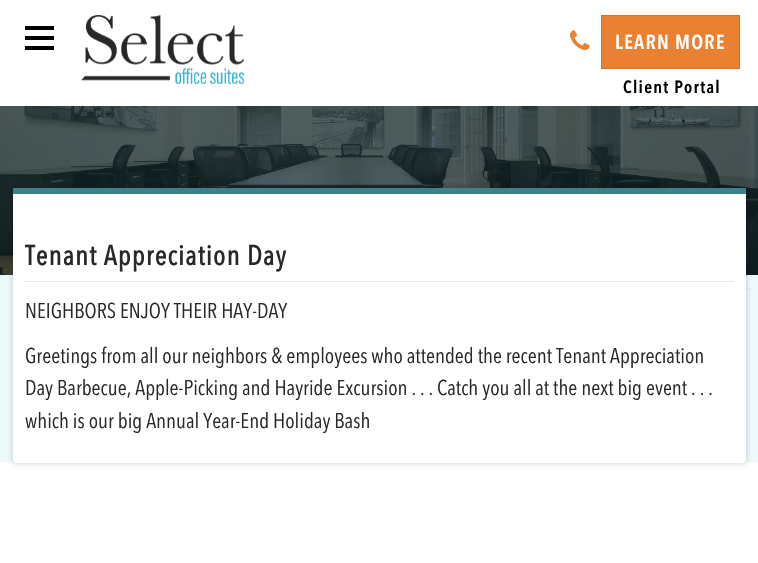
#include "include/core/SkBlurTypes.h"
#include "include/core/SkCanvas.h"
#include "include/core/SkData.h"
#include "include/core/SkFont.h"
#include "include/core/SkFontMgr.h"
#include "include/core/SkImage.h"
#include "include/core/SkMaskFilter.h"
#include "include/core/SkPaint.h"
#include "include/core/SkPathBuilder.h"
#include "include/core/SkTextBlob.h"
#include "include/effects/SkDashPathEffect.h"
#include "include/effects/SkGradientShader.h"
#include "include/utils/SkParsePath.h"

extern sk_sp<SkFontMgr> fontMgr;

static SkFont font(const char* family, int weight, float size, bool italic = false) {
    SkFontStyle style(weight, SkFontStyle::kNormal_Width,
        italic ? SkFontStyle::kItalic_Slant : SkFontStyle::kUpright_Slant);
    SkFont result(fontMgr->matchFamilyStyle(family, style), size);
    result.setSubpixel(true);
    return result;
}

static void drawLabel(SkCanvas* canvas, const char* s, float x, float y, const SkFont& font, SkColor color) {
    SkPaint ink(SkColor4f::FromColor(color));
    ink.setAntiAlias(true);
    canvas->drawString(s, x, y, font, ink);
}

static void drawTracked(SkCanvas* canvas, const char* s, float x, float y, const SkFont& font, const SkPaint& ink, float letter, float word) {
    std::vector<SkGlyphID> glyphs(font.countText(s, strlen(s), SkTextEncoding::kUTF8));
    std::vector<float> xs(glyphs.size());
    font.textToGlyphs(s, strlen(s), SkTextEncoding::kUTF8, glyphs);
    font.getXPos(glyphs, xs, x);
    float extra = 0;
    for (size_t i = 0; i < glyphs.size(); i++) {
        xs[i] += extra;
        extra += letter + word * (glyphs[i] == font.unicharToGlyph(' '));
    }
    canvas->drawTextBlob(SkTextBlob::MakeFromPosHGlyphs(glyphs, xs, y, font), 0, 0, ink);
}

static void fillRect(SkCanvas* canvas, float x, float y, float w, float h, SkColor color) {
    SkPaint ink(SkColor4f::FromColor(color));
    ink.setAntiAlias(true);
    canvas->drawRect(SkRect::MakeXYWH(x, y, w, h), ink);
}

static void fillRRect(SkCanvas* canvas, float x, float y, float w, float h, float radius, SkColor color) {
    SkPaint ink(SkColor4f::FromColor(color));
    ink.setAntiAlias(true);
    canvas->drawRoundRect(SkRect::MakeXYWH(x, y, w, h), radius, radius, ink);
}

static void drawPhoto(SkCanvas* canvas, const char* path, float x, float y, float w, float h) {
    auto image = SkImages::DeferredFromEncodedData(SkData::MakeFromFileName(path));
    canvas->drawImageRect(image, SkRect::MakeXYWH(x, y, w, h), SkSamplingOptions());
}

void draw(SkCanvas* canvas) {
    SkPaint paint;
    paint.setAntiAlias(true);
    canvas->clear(0xFFFFFFFF);
    fillRect(canvas, 25, 36, 29, 4, 0xFF000000);
    fillRect(canvas, 25, 26, 29, 4, 0xFF000000);
    fillRect(canvas, 25, 46, 29, 4, 0xFF000000);
    drawPhoto(canvas, "assets/img1.png", 81, 15, 163, 69);
    drawPhoto(canvas, "assets/img2.png", 570, 30, 20, 20);
    paint.setColor(0xFFEA8132);
    canvas->drawRect(SkRect::MakeXYWH(601.5f, 15.5f, 138, 53), paint);
    paint.setStroke(true);
    paint.setStrokeWidth(1);
    paint.setColor(0xFFD87021);
    canvas->drawRect(SkRect::MakeXYWH(601.5f, 15.5f, 138, 53), paint);
    SkFont font1 = font("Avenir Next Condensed", 600, 20);
    paint.setStroke(false);
    paint.setColor(0xFFFFFFFF);
    drawTracked(canvas, "LEARN MORE", 615, 49, font1, paint, 1.25f, 0);
    SkFont font2 = font("Avenir Next Condensed", 600, 17.5f);
    paint.setColor(0xFF000000);
    drawTracked(canvas, "Client Portal", 623, 93, font2, paint, 1.25f, 0);
    fillRect(canvas, 0, 106, 758, 169, 0xFF000000);
    drawPhoto(canvas, "assets/img3.png", 0, 106, 758, 169);
    fillRect(canvas, 0, 106, 758, 169, 0x333C818C);
    drawPhoto(canvas, "assets/img4.png", 0, 275, 758, 188);
    paint.setColor(0x33000000);
    paint.setMaskFilter(SkMaskFilter::MakeBlur(kNormal_SkBlurStyle, 3));
    canvas->drawRoundRect(SkRect::MakeXYWH(13, 188, 733, 275), 4, 4, paint);
    paint.setMaskFilter(nullptr);
    fillRRect(canvas, 13, 188, 733, 275, 4, 0xFFFFFFFF);
    fillRect(canvas, 13, 188, 733, 6, 0xFF3C818C);
    fillRect(canvas, 25, 281, 709, 1, 0xFFE6E6EE);
    SkFont font3 = font("Avenir Next Condensed", 700, 27.5f);
    paint.setColor(0xFF282829);
    drawTracked(canvas, "Tenant Appreciation Day", 25, 265, font3, paint, 1.25f, 0);
    SkFont font4 = font("Avenir Next Condensed", 400, 21.25f);
    drawLabel(canvas, "NEIGHBORS ENJOY THEIR HAY-DAY", 25, 318, font4, 0xFF282829);
    drawLabel(canvas, "Greetings from all our neighbors & employees who attended the recent Tenant Appreciation", 25, 363, font4, 0xFF282829);
    drawLabel(canvas, "Day Barbecue, Apple-Picking and Hayride Excursion . . . Catch you all at the next big event . . .", 25, 395, font4, 0xFF282829);
    drawLabel(canvas, "which is our big Annual Year-End Holiday Bash", 25, 428, font4, 0xFF282829);
}
